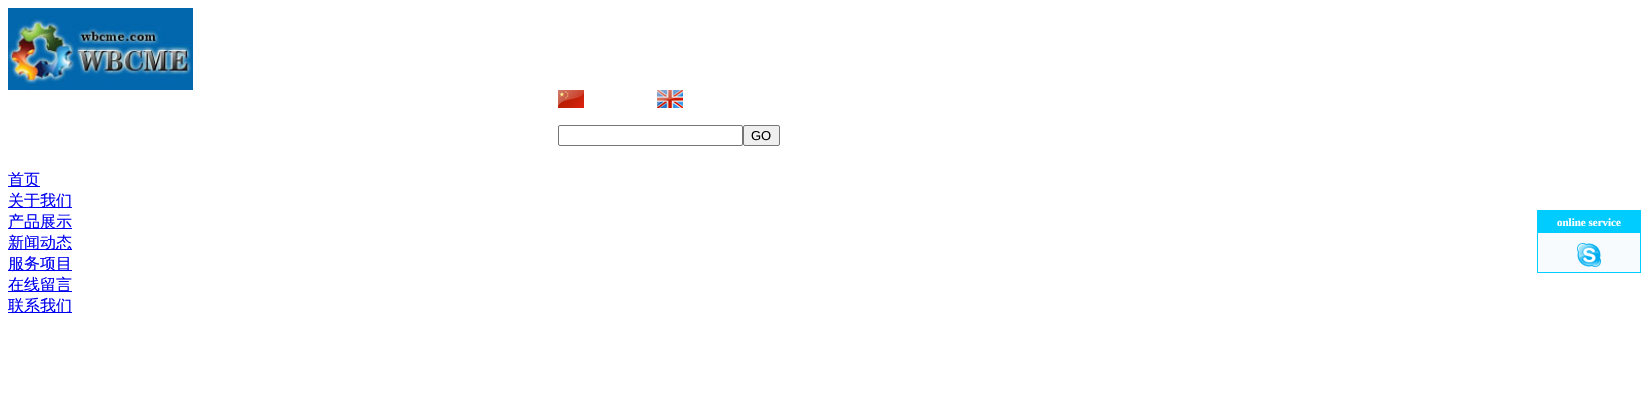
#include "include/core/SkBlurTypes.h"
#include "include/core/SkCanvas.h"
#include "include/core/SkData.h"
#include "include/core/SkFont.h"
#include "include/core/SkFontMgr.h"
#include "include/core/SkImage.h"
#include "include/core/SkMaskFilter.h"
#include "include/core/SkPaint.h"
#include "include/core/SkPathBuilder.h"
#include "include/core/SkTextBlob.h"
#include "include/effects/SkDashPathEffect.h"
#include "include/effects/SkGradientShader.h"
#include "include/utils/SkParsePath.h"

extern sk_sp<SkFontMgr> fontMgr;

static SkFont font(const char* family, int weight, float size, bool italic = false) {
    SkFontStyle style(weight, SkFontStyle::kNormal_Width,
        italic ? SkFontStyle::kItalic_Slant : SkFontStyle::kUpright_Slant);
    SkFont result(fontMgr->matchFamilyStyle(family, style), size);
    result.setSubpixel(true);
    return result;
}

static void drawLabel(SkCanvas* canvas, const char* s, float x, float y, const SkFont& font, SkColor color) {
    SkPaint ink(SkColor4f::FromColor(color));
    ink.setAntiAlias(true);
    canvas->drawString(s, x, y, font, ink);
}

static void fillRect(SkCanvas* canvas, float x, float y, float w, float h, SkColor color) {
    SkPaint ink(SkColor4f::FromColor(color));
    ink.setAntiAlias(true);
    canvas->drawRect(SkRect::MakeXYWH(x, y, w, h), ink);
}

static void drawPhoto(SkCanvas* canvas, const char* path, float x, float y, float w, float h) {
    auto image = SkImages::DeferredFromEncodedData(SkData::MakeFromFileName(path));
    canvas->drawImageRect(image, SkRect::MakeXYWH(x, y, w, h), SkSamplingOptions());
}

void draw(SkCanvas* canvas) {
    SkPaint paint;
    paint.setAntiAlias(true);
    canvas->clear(0xFFFFFFFF);
    drawPhoto(canvas, "assets/img1.png", 8, 8, 185, 82);
    drawPhoto(canvas, "assets/img2.png", 558, 90, 26, 18);
    drawPhoto(canvas, "assets/img3.png", 657, 90, 26, 18);
    paint.setStroke(true);
    paint.setStrokeWidth(1);
    paint.setColor(0xFF767676);
    canvas->drawRoundRect(SkRect::MakeXYWH(558.5f, 125.5f, 184, 20), 1.5f, 1.5f, paint);
    paint.setStroke(false);
    paint.setColor(0xFFEFEFEF);
    canvas->drawRoundRect(SkRect::MakeXYWH(743.5f, 125.5f, 36, 20), 1.5f, 1.5f, paint);
    paint.setStroke(true);
    paint.setColor(0xFF767676);
    canvas->drawRoundRect(SkRect::MakeXYWH(743.5f, 125.5f, 36, 20), 1.5f, 1.5f, paint);
    SkFont font1 = font("Liberation Sans", 400, 13);
    drawLabel(canvas, "GO", 751, 140, font1, 0xFF000000);
    fillRect(canvas, 8, 186, 32, 1, 0xFF0000EE);
    SkFont font2 = font("WenQuanYi Zen Hei", 500, 16);
    drawLabel(canvas, "首页", 8, 185, font2, 0xFF0000EE);
    fillRect(canvas, 8, 207, 64, 1, 0xFF0000EE);
    drawLabel(canvas, "关于我们", 8, 206, font2, 0xFF0000EE);
    fillRect(canvas, 8, 228, 64, 1, 0xFF0000EE);
    drawLabel(canvas, "产品展示", 8, 227, font2, 0xFF0000EE);
    fillRect(canvas, 8, 249, 64, 1, 0xFF0000EE);
    drawLabel(canvas, "新闻动态", 8, 248, font2, 0xFF0000EE);
    fillRect(canvas, 8, 270, 64, 1, 0xFF0000EE);
    drawLabel(canvas, "服务项目", 8, 269, font2, 0xFF0000EE);
    fillRect(canvas, 8, 291, 64, 1, 0xFF0000EE);
    drawLabel(canvas, "在线留言", 8, 290, font2, 0xFF0000EE);
    fillRect(canvas, 8, 312, 64, 1, 0xFF0000EE);
    drawLabel(canvas, "联系我们", 8, 311, font2, 0xFF0000EE);
    fillRect(canvas, 1538, 233, 102, 39, 0xFFF8FBFE);
    paint.setColor(0xFF00CCFF);
    canvas->drawRect(SkRect::MakeXYWH(1537.5f, 210.5f, 103, 62), paint);
    fillRect(canvas, 1538, 211, 102, 22, 0xFF00CCFF);
    SkFont font3 = font("Liberation Serif", 700, 11);
    drawLabel(canvas, "online service", 1557, 226, font3, 0xFFFFFFFF);
    drawPhoto(canvas, "assets/img4.png", 1577, 243, 24, 24);
}
